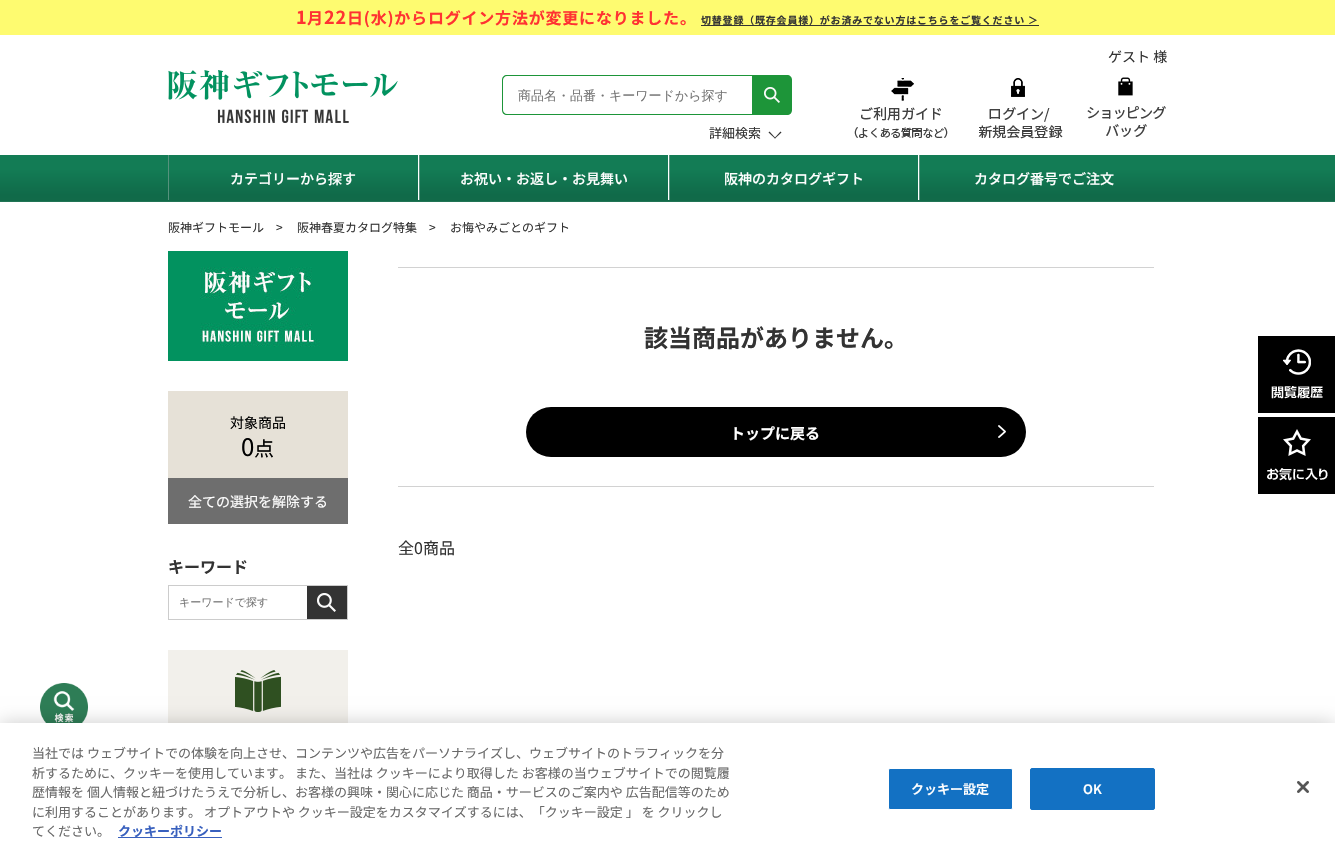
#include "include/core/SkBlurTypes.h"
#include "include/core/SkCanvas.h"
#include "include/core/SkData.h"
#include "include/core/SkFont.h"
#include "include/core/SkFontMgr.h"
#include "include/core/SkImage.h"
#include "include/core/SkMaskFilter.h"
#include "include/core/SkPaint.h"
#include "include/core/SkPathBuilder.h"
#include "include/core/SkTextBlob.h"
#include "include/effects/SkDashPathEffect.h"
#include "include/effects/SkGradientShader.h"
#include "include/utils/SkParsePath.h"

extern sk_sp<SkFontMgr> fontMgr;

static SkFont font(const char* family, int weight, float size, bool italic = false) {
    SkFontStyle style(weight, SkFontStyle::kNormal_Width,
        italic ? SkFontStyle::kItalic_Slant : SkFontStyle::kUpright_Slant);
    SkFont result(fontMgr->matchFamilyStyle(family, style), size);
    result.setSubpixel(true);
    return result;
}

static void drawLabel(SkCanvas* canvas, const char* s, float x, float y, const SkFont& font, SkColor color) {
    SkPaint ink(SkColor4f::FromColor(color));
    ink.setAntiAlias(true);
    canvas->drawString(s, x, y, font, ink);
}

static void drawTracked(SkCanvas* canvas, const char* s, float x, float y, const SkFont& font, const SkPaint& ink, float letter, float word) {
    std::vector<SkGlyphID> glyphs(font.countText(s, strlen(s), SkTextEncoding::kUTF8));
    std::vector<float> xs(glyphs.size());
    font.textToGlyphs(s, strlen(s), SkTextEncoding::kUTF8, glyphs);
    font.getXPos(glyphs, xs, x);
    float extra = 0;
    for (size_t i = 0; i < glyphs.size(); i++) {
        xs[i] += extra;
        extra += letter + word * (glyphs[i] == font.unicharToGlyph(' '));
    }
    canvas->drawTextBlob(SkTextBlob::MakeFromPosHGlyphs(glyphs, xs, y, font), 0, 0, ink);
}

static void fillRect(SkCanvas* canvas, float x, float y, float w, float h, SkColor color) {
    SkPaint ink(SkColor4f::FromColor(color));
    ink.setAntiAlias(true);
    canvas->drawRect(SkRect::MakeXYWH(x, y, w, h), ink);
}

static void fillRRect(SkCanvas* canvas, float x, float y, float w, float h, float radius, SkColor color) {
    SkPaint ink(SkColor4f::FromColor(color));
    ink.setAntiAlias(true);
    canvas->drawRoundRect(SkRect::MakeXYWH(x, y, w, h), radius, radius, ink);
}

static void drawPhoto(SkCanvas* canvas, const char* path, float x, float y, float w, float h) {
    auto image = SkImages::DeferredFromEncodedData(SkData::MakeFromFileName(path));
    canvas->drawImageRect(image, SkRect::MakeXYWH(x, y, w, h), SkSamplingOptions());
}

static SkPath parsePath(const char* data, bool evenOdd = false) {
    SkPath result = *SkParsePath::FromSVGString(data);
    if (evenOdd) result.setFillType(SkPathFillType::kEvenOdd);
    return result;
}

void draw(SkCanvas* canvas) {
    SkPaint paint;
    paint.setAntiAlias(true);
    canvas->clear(0xFFFFFFFF);
    fillRect(canvas, 0, 0, 1335, 35, 0xFFFEFB70);
    SkFont font1 = font("Noto Sans JP", 700, 18);
    paint.setColor(0xFFFF3232);
    drawTracked(canvas, "1", 296, 24, font1, paint, 0.8f, 0);
    SkFont font2 = font("Noto Sans JP", 700, 16);
    drawTracked(canvas, "月", 307, 24, font2, paint, 0.8f, 0);
    drawTracked(canvas, "22", 324, 24, font1, paint, 0.8f, 0);
    drawTracked(canvas, "日(水)からログイン方法が変更になりました。", 347, 24, font2, paint, 0.8f, 0);
    SkFont font3 = font("Noto Sans JP", 700, 10);
    paint.setColor(0xFF333333);
    drawTracked(canvas, "切替登録（既存会員様）がお済みでない方はこちらをご覧ください ＞", 701, 24, font3, paint, 0.8f, 0);
    fillRect(canvas, 701, 25, 338, 1, 0xFF333333);
    SkFont font4 = font("Noto Sans JP", 400, 14);
    drawLabel(canvas, "ゲスト 様", 1108, 62, font4, 0xFF333333);
    drawPhoto(canvas, "assets/img1.png", 168, 70, 230, 53);
    paint.setColor(0xFF1D9539);
    canvas->drawPath(parsePath("M507 75H752V115H507C504 115 502 113 502 110V80C502 77 504 75 507 75ZM507 76H752V114H507C505 114 503 112 503 110V80C503 78 505 76 507 76Z", true), paint);
    SkFont font5 = font("WenQuanYi Zen Hei", 500, 13);
    drawLabel(canvas, "商品名・品番・キーワードから探す", 518, 100, font5, 0xFF757575);
    canvas->drawPath(parsePath("M752 75H787C790 75 792 77 792 80V110C792 113 790 115 787 115H752Z"), paint);
    drawPhoto(canvas, "assets/img2.png", 764, 87, 16, 16);
    SkFont font6 = font("Noto Sans JP", 400, 13);
    drawLabel(canvas, "詳細検索", 709, 138, font6, 0xFF333333);
    paint.setColor(0xFF333333);
    canvas->drawPath(parsePath("M780.5 131.5L781.5 132.5L775 138.5L774.5 138Z"), paint);
    canvas->drawPath(parsePath("M769.5 131.5L775.5 138L775 138.5L768.5 132.5Z"), paint);
    drawPhoto(canvas, "assets/img3.png", 854, 78, 94, 60);
    drawPhoto(canvas, "assets/img4.png", 978, 78, 85, 61);
    drawPhoto(canvas, "assets/img5.png", 1087, 77, 79, 60);
    {
        const SkColor colors[] = {0xFF137C55, 0xFF137C55, 0xFF106A49, 0xFF116A49, 0xFF338063};
        const float stops[] = {0, 0.3f, 0.85f, 0.98f, 1};
        const SkPoint ends[] = {{668, 155}, {668, 202}};
        paint.setShader(SkGradientShader::MakeLinear(ends, colors, stops, 5, SkTileMode::kClamp));
        paint.setAlpha(255);
    }
    canvas->drawRect(SkRect::MakeXYWH(0, 155, 1335, 47), paint);
    fillRect(canvas, 168, 155, 1, 45, 0xFF56927D);
    SkFont font7 = font("Noto Sans JP", 500, 14);
    drawLabel(canvas, "カテゴリーから探す", 230, 184, font7, 0xFFFFFFFF);
    fillRect(canvas, 418, 155, 1, 45, 0xFFFFFFFF);
    fillRect(canvas, 419, 155, 1, 45, 0xFF56927D);
    drawLabel(canvas, "お祝い・お返し・お見舞い", 460, 184, font7, 0xFFFFFFFF);
    fillRect(canvas, 668, 155, 1, 45, 0xFFFFFFFF);
    fillRect(canvas, 669, 155, 1, 45, 0xFF56927D);
    drawLabel(canvas, "阪神のカタログギフト", 724, 184, font7, 0xFFFFFFFF);
    fillRect(canvas, 918, 155, 1, 45, 0xFFFFFFFF);
    fillRect(canvas, 919, 155, 1, 45, 0xFF56927D);
    drawLabel(canvas, "カタログ番号でご注文", 974, 184, font7, 0xFFFFFFFF);
    SkFont font8 = font("Noto Sans JP", 400, 12);
    drawLabel(canvas, "阪神ギフトモール", 168, 232, font8, 0xFF333333);
    drawLabel(canvas, ">", 276, 232, font8, 0xFF333333);
    drawLabel(canvas, "阪神春夏カタログ特集", 297, 232, font8, 0xFF333333);
    drawLabel(canvas, ">", 429, 232, font8, 0xFF333333);
    drawLabel(canvas, "お悔やみごとのギフト", 450, 232, font8, 0xFF333333);
    drawPhoto(canvas, "assets/img6.png", 168, 251, 180, 110);
    fillRect(canvas, 168, 391, 180, 87, 0xFFE6E1D7);
    drawLabel(canvas, "対象商品", 230, 428, font4, 0xFF000000);
    SkFont font9 = font("Noto Sans JP", 400, 24);
    drawLabel(canvas, "0", 241, 456, font9, 0xFF000000);
    SkFont font10 = font("Noto Sans JP", 400, 20);
    drawLabel(canvas, "点", 254, 456, font10, 0xFF000000);
    fillRect(canvas, 168, 478, 180, 46, 0xFF6E6E6E);
    drawLabel(canvas, "全ての選択を解除する", 188, 507, font4, 0xFFFFFFFF);
    drawLabel(canvas, "キーワード", 168, 573, font2, 0xFF333333);
    paint.setStroke(true);
    paint.setStrokeWidth(1);
    paint.setShader(nullptr);
    paint.setColor(0xFFCCCCCC);
    canvas->drawRect(SkRect::MakeXYWH(168.5f, 585.5f, 179, 34), paint);
    SkFont font11 = font("WenQuanYi Zen Hei", 500, 11);
    drawLabel(canvas, "キーワードで探す", 179, 606, font11, 0xFF757575);
    fillRect(canvas, 307, 586, 40, 33, 0xFF333333);
    drawPhoto(canvas, "assets/img7.png", 317, 593, 19, 19);
    fillRect(canvas, 168, 650, 180, 73, 0xFFF2F0EB);
    drawPhoto(canvas, "assets/img8.png", 235, 670, 46, 42);
    fillRect(canvas, 398, 267, 756, 1, 0xFFD2D2D2);
    SkFont font12 = font("Noto Sans JP", 700, 24);
    drawLabel(canvas, "該当商品がありません。", 644, 347, font12, 0xFF333333);
    fillRRect(canvas, 526, 407, 500, 50, 25, 0xFF000000);
    SkFont font13 = font("Noto Sans JP", 700, 15);
    drawLabel(canvas, "トップに戻る", 730, 439, font13, 0xFFFFFFFF);
    drawPhoto(canvas, "assets/img9.png", 998, 425, 8, 13);
    fillRect(canvas, 398, 486, 756, 1, 0xFFD2D2D2);
    SkFont font14 = font("Noto Sans JP", 400, 16);
    drawLabel(canvas, "全0商品", 398, 554, font14, 0xFF333333);
    fillRect(canvas, 1258, 336, 77, 77, 0xFF000000);
    drawPhoto(canvas, "assets/img10.png", 1271, 349, 52, 50);
    fillRect(canvas, 1258, 417, 77, 77, 0xFF000000);
    drawPhoto(canvas, "assets/img11.png", 1267, 429, 61, 52);
    drawPhoto(canvas, "assets/img12.png", 40, 683, 48, 40);
    paint.setStroke(false);
    paint.setColor(0x33000000);
    paint.setMaskFilter(SkMaskFilter::MakeBlur(kNormal_SkBlurStyle, 9));
    canvas->drawRect(SkRect::MakeXYWH(0, 723, 1335, 128), paint);
    paint.setMaskFilter(nullptr);
    fillRect(canvas, 0, 723, 1335, 128, 0xFFFFFFFF);
    drawLabel(canvas, "当社では ウェブサイトでの体験を向上させ、コンテンツや広告をパーソナライズし、ウェブサイトのトラフィックを分", 32, 758, font6, 0xFF696969);
    drawLabel(canvas, "析するために、クッキーを使用しています。 また、当社は クッキーにより取得した お客様の当ウェブサイトでの閲覧履", 32, 778, font6, 0xFF696969);
    drawLabel(canvas, "歴情報を 個人情報と紐づけたうえで分析し、お客様の興味・関心に応じた 商品・サービスのご案内や 広告配信等のため", 32, 797, font6, 0xFF696969);
    drawLabel(canvas, "に利用することがあります。 オプトアウトや クッキー設定をカスタマイズするには、「クッキー設定 」 を クリックし", 32, 817, font6, 0xFF696969);
    drawLabel(canvas, "てください。", 32, 836, font6, 0xFF696969);
    fillRect(canvas, 118, 837, 104, 1, 0xFF3860BE);
    SkFont font15 = font("Noto Sans JP", 700, 13);
    drawLabel(canvas, "クッキーポリシー", 118, 836, font15, 0xFF3860BE);
    paint.setColor(0xFF1371C3);
    canvas->drawRoundRect(SkRect::MakeXYWH(888.5f, 768.5f, 124, 41), 1.5f, 1.5f, paint);
    paint.setStroke(true);
    paint.setColor(0xFFFFFFFF);
    canvas->drawRoundRect(SkRect::MakeXYWH(888.5f, 768.5f, 124, 41), 1.5f, 1.5f, paint);
    SkFont font16 = font("Noto Sans JP", 600, 13);
    drawLabel(canvas, "クッキー設定", 911, 794, font16, 0xFFFFFFFF);
    paint.setStroke(false);
    paint.setColor(0xFF1371C3);
    canvas->drawRoundRect(SkRect::MakeXYWH(1030.5f, 768.5f, 124, 41), 1.5f, 1.5f, paint);
    paint.setStroke(true);
    canvas->drawRoundRect(SkRect::MakeXYWH(1030.5f, 768.5f, 124, 41), 1.5f, 1.5f, paint);
    drawLabel(canvas, "OK", 1083, 794, font16, 0xFFFFFFFF);
    drawPhoto(canvas, "assets/img13.png", 1297, 781, 12, 12);
}
